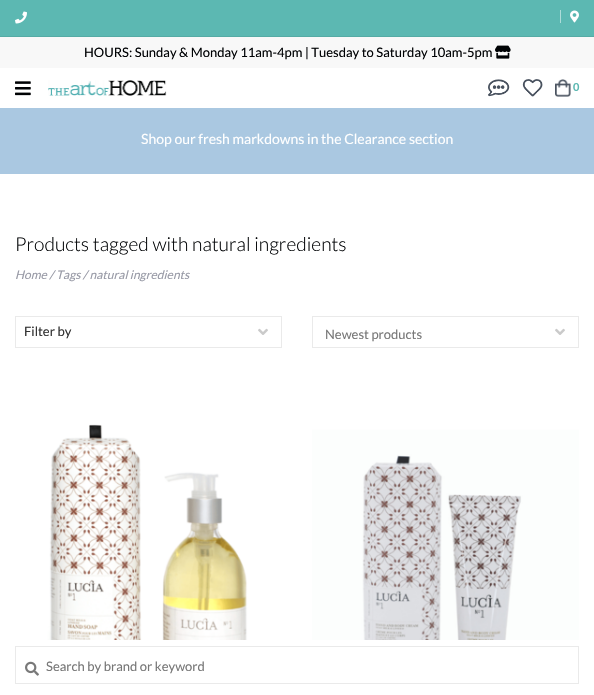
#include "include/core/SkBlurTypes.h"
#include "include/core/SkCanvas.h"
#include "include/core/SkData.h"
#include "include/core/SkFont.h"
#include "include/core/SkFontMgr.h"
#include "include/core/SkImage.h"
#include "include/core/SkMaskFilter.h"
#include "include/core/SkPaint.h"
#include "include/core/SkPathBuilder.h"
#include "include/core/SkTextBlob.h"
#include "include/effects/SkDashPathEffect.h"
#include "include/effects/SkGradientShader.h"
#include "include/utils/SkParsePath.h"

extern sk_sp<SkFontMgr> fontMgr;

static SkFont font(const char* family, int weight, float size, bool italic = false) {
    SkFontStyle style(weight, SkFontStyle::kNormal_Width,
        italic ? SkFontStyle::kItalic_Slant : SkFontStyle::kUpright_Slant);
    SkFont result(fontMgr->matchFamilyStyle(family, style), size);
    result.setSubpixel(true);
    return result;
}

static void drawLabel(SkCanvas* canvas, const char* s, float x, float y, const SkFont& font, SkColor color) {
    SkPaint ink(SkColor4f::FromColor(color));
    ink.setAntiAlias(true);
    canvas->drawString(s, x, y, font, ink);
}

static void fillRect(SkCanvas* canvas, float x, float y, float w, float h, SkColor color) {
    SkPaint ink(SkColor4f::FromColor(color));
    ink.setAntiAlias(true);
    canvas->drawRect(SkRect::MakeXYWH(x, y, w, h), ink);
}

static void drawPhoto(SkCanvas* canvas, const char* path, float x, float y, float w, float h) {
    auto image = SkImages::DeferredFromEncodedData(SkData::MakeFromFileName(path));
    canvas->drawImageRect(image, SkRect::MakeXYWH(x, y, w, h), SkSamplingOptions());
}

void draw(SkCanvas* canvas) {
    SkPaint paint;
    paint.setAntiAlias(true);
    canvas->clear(0xFFFFFFFF);
    fillRect(canvas, 0, 0, 594, 36, 0xFF5CB8B2);
    fillRect(canvas, 0, 36, 594, 1, 0xFF55ABA5);
    drawPhoto(canvas, "assets/img1.png", 15, 11, 12, 13);
    fillRect(canvas, 560, 10, 1, 13, 0xFFAEDCD9);
    drawPhoto(canvas, "assets/img2.png", 570, 10, 9, 13);
    fillRect(canvas, 0, 37, 594, 31, 0xFFF8F8F8);
    SkFont font1 = font("Lato", 400, 13);
    drawLabel(canvas, "HOURS: Sunday & Monday 11am-4pm | Tuesday to Saturday 10am-5pm", 84, 57, font1, 0xFF000204);
    drawPhoto(canvas, "assets/img3.png", 495, 45, 16, 14);
    drawPhoto(canvas, "assets/img4.png", 15, 81, 16, 15);
    drawPhoto(canvas, "assets/img5.png", 48, 80, 119, 16);
    drawPhoto(canvas, "assets/img6.png", 488, 79, 22, 18);
    drawPhoto(canvas, "assets/img7.png", 522, 79, 21, 18);
    drawPhoto(canvas, "assets/img8.png", 555, 79, 16, 18);
    SkFont font2 = font("Lato", 700, 11);
    drawLabel(canvas, "0", 573, 91, font2, 0xFF5CB8B2);
    fillRect(canvas, 0, 108, 594, 66, 0xFFAAC8E1);
    SkFont font3 = font("Lato", 400, 14);
    drawLabel(canvas, "Shop our fresh markdowns in the Clearance section", 141, 144, font3, 0xFFFFFFFF);
    SkFont font4 = font("Lato", 300, 19.2f);
    drawLabel(canvas, "Products tagged with natural ingredients", 15, 251, font4, 0xFF000204);
    SkFont font5 = font("Lato", 400, 12, true);
    drawLabel(canvas, "Home / Tags / natural ingredients", 15, 279, font5, 0xFF989AA6);
    drawPhoto(canvas, "assets/img9.png", 258, 328, 10, 7);
    paint.setStroke(true);
    paint.setStrokeWidth(1);
    paint.setColor(0xFFEAEAEA);
    canvas->drawRect(SkRect::MakeXYWH(15.5f, 316.5f, 266, 31), paint);
    drawLabel(canvas, "Filter by", 24, 336, font1, 0xFF333333);
    drawPhoto(canvas, "assets/img9.png", 555, 328, 10, 7);
    canvas->drawRect(SkRect::MakeXYWH(312.5f, 316.5f, 266, 31), paint);
    drawLabel(canvas, "Newest products", 325, 339, font1, 0xFF777777);
    drawPhoto(canvas, "assets/img10.png", 15, 383, 267, 257);
    drawPhoto(canvas, "assets/img11.png", 312, 383, 267, 257);
    canvas->drawRect(SkRect::MakeXYWH(15.5f, 646.5f, 563, 37), paint);
    drawPhoto(canvas, "assets/img12.png", 25, 661, 14, 15);
    drawLabel(canvas, "Search by brand or keyword", 46, 671, font1, 0xFF777777);
}
